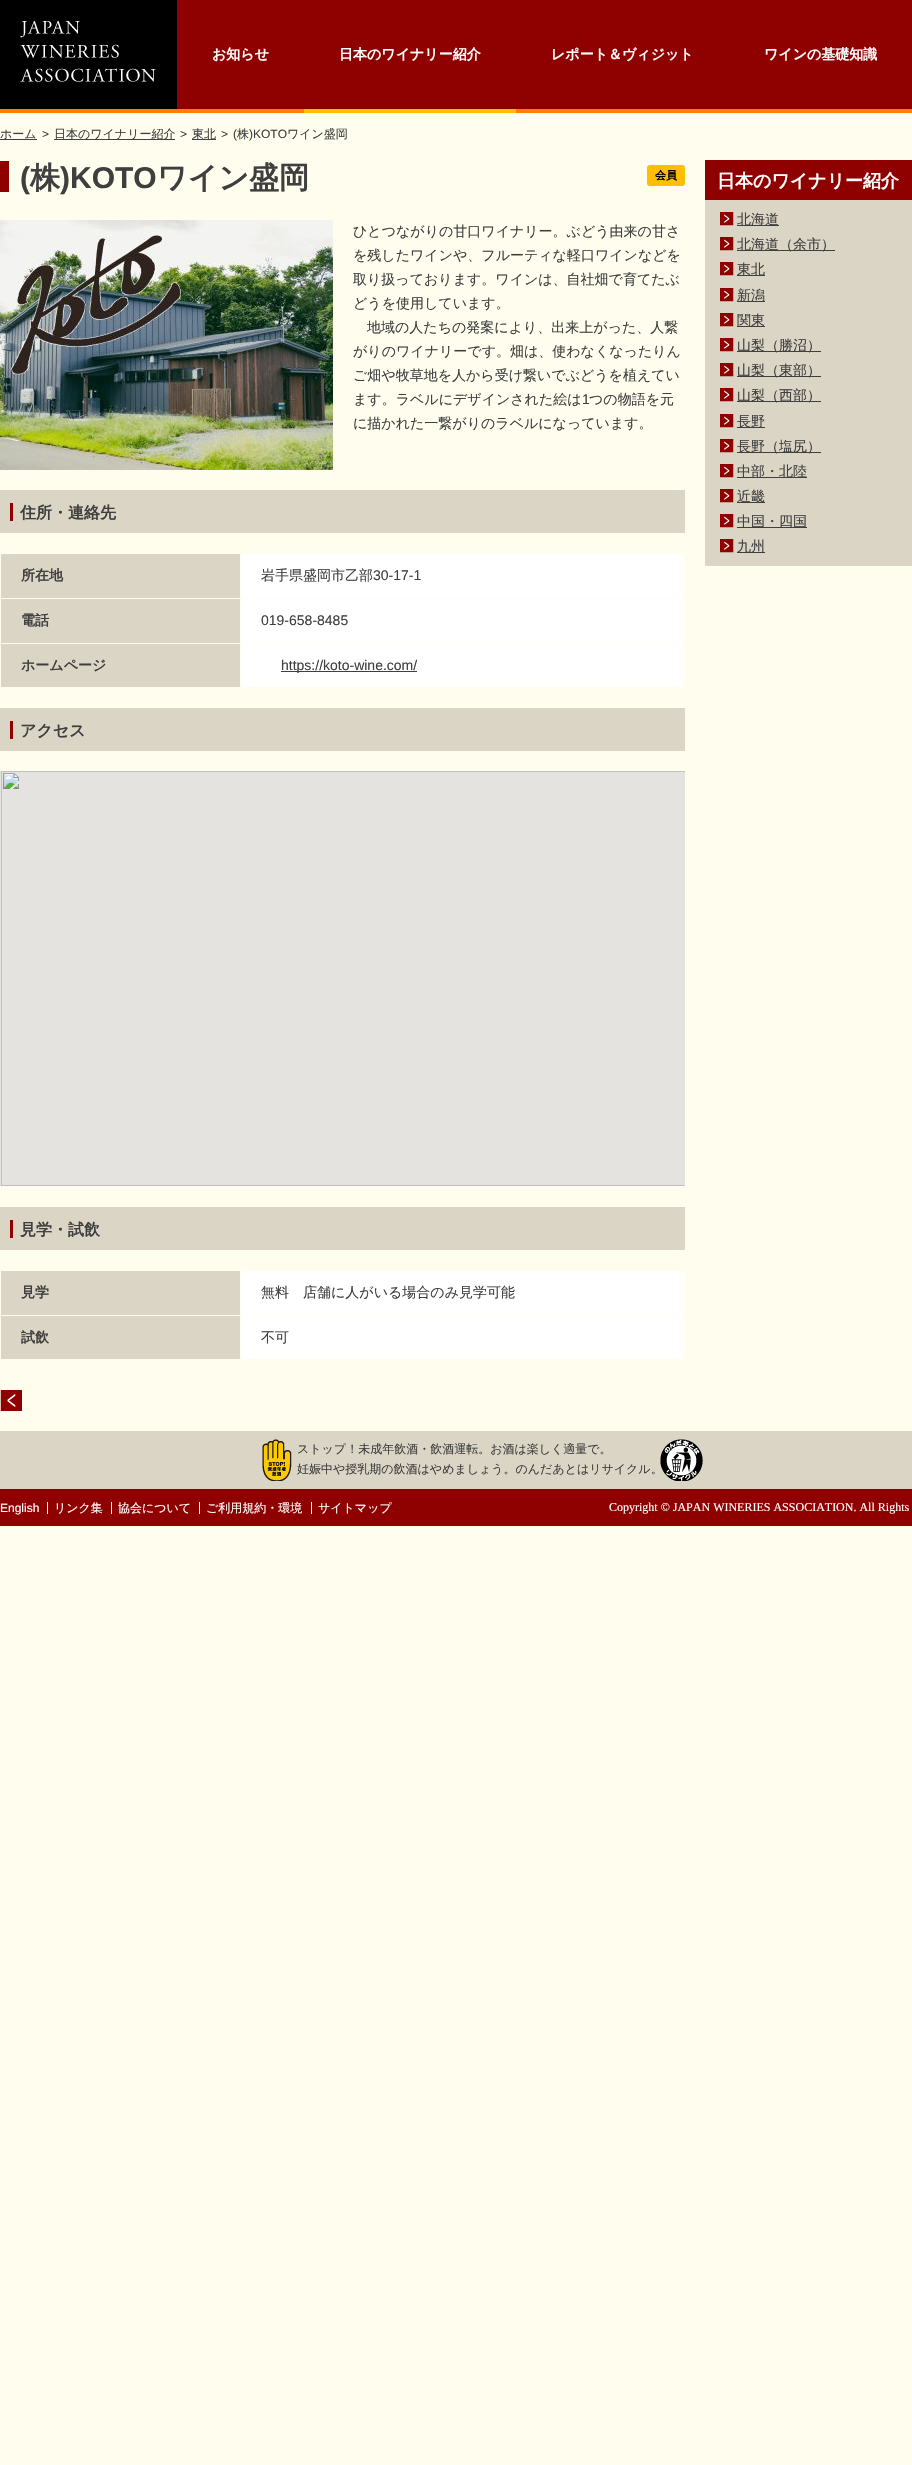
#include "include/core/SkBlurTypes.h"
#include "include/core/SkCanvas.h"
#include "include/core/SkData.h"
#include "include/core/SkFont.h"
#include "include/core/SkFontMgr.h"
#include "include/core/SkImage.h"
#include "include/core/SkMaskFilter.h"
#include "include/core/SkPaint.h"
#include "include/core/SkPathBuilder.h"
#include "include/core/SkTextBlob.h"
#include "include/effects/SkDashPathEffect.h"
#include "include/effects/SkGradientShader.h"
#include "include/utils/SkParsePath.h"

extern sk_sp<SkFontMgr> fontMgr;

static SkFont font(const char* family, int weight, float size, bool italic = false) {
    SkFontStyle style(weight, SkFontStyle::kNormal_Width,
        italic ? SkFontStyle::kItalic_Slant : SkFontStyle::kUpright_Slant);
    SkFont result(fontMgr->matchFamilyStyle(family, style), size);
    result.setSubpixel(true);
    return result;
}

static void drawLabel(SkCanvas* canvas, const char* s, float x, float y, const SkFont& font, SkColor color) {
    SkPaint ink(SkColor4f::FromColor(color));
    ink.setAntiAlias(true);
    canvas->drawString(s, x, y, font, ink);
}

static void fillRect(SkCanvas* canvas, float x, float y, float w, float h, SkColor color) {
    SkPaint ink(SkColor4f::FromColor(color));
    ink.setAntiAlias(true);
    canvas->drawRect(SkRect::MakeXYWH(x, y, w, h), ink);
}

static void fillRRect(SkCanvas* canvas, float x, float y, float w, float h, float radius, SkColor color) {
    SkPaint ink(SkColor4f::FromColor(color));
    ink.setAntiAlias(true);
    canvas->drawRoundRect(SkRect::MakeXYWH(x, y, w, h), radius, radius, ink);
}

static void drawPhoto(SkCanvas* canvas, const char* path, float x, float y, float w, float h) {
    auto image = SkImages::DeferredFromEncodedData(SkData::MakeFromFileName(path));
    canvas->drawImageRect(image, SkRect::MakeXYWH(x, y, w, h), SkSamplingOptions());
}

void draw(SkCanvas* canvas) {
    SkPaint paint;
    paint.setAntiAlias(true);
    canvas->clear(0xFFFFFEEE);
    fillRect(canvas, 177, 0, 735, 109, 0xFF8F0000);
    fillRect(canvas, 0, 109, 912, 4, 0xFFFF7F00);
    fillRect(canvas, 0, 0, 177, 109, 0xFF000000);
    drawPhoto(canvas, "assets/img1.png", 20, 20, 136, 62);
    SkFont font1 = font("WenQuanYi Zen Hei", 700, 14);
    drawLabel(canvas, "お知らせ", 212, 59, font1, 0xFFFFFFFF);
    fillRect(canvas, 304, 109, 212, 4, 0xFFFFBF00);
    drawLabel(canvas, "日本のワイナリー紹介", 339, 59, font1, 0xFFFFFFFF);
    drawLabel(canvas, "レポート＆ヴィジット", 551, 59, font1, 0xFFFFFFFF);
    drawLabel(canvas, "ワインの基礎知識", 764, 59, font1, 0xFFFFFFFF);
    fillRect(canvas, 0, 139, 37, 1, 0xFF3F3F3F);
    SkFont font2 = font("WenQuanYi Zen Hei", 500, 12);
    drawLabel(canvas, "ホーム", 0, 138, font2, 0xFF3F3F3F);
    SkFont font3 = font("Liberation Sans", 400, 12);
    drawLabel(canvas, ">", 42, 138, font3, 0xFF3F3F3F);
    fillRect(canvas, 54, 139, 121, 1, 0xFF3F3F3F);
    drawLabel(canvas, "日本のワイナリー紹介", 54, 138, font2, 0xFF3F3F3F);
    drawLabel(canvas, ">", 180, 138, font3, 0xFF3F3F3F);
    fillRect(canvas, 192, 139, 24, 1, 0xFF3F3F3F);
    drawLabel(canvas, "東北", 192, 138, font2, 0xFF3F3F3F);
    drawLabel(canvas, ">", 221, 138, font3, 0xFF3F3F3F);
    drawLabel(canvas, "(", 233, 138, font3, 0xFF3F3F3F);
    drawLabel(canvas, "株", 237, 138, font2, 0xFF3F3F3F);
    drawLabel(canvas, ")KOTO", 249, 138, font3, 0xFF3F3F3F);
    drawLabel(canvas, "ワイン盛岡", 287, 138, font2, 0xFF3F3F3F);
    fillRect(canvas, 0, 161, 9, 31, 0xFF8F0000);
    SkFont font4 = font("Liberation Sans", 700, 30);
    drawLabel(canvas, "(", 20, 188, font4, 0xFF3F3F3F);
    SkFont font5 = font("WenQuanYi Zen Hei", 700, 30);
    drawLabel(canvas, "株", 30, 188, font5, 0xFF3F3F3F);
    drawLabel(canvas, ")KOTO", 60, 188, font4, 0xFF3F3F3F);
    drawLabel(canvas, "ワイン盛岡", 157, 188, font5, 0xFF3F3F3F);
    fillRRect(canvas, 647, 165, 38, 21, 3, 0xFFFFBF00);
    SkFont font6 = font("WenQuanYi Zen Hei", 700, 11);
    drawLabel(canvas, "会員", 655, 179, font6, 0xFF000000);
    drawPhoto(canvas, "assets/img2.png", 0, 220, 333, 250);
    SkFont font7 = font("WenQuanYi Zen Hei", 500, 14);
    drawLabel(canvas, "ひとつながりの甘口ワイナリー。ぶどう由来の甘さ", 353, 236, font7, 0xFF3F3F3F);
    drawLabel(canvas, "を残したワインや、フルーティな軽口ワインなどを", 353, 260, font7, 0xFF3F3F3F);
    drawLabel(canvas, "取り扱っております。ワインは、自社畑で育てたぶ", 353, 284, font7, 0xFF3F3F3F);
    drawLabel(canvas, "どうを使用しています。", 353, 308, font7, 0xFF3F3F3F);
    drawLabel(canvas, "地域の人たちの発案により、出来上がった、人繋", 367, 332, font7, 0xFF3F3F3F);
    drawLabel(canvas, "がりのワイナリーです。畑は、使わなくなったりん", 353, 356, font7, 0xFF3F3F3F);
    drawLabel(canvas, "ご畑や牧草地を人から受け繋いでぶどうを植えてい", 353, 380, font7, 0xFF3F3F3F);
    drawLabel(canvas, "ます。ラベルにデザインされた絵は", 353, 404, font7, 0xFF3F3F3F);
    SkFont font8 = font("Liberation Sans", 400, 14);
    drawLabel(canvas, "1", 582, 404, font8, 0xFF3F3F3F);
    drawLabel(canvas, "つの物語を元", 589, 404, font7, 0xFF3F3F3F);
    drawLabel(canvas, "に描かれた一繋がりのラベルになっています。", 353, 428, font7, 0xFF3F3F3F);
    fillRect(canvas, 0, 490, 685, 43, 0xFFDAD5C4);
    fillRect(canvas, 10, 503, 3, 18, 0xFF8F0000);
    SkFont font9 = font("WenQuanYi Zen Hei", 700, 16);
    drawLabel(canvas, "住所・連絡先", 20, 518, font9, 0xFF3F3F3F);
    fillRect(canvas, 1, 554, 239, 44, 0xFFDAD5C4);
    drawLabel(canvas, "所在地", 21, 580, font1, 0xFF3F3F3F);
    fillRect(canvas, 241, 554, 443, 44, 0xFFFFFFFF);
    drawLabel(canvas, "岩手県盛岡市乙部", 261, 580, font7, 0xFF3F3F3F);
    drawLabel(canvas, "30-17-1", 373, 580, font8, 0xFF3F3F3F);
    fillRect(canvas, 1, 599, 239, 44, 0xFFDAD5C4);
    drawLabel(canvas, "電話", 21, 625, font1, 0xFF3F3F3F);
    fillRect(canvas, 241, 599, 443, 44, 0xFFFFFFFF);
    drawLabel(canvas, "019-658-8485", 261, 625, font8, 0xFF3F3F3F);
    fillRect(canvas, 1, 644, 239, 43, 0xFFDAD5C4);
    drawLabel(canvas, "ホームページ", 21, 670, font1, 0xFF3F3F3F);
    fillRect(canvas, 241, 644, 443, 43, 0xFFFFFFFF);
    fillRect(canvas, 281, 671, 136, 1, 0xFF3F3F3F);
    drawLabel(canvas, "https://koto-wine.com/", 281, 670, font8, 0xFF3F3F3F);
    fillRect(canvas, 0, 708, 685, 43, 0xFFDAD5C4);
    fillRect(canvas, 10, 721, 3, 18, 0xFF8F0000);
    drawLabel(canvas, "アクセス", 20, 736, font9, 0xFF3F3F3F);
    drawPhoto(canvas, "assets/img3.png", 0, 771, 685, 415);
    fillRect(canvas, 0, 1207, 685, 43, 0xFFDAD5C4);
    fillRect(canvas, 10, 1220, 3, 18, 0xFF8F0000);
    drawLabel(canvas, "見学・試飲", 20, 1235, font9, 0xFF3F3F3F);
    fillRect(canvas, 1, 1271, 239, 44, 0xFFDAD5C4);
    drawLabel(canvas, "見学", 21, 1297, font1, 0xFF3F3F3F);
    fillRect(canvas, 241, 1271, 443, 44, 0xFFFFFFFF);
    drawLabel(canvas, "無料　店舗に人がいる場合のみ見学可能", 261, 1297, font7, 0xFF3F3F3F);
    fillRect(canvas, 1, 1316, 239, 43, 0xFFDAD5C4);
    drawLabel(canvas, "試飲", 21, 1342, font1, 0xFF3F3F3F);
    fillRect(canvas, 241, 1316, 443, 43, 0xFFFFFFFF);
    drawLabel(canvas, "不可", 261, 1342, font7, 0xFF3F3F3F);
    fillRect(canvas, 705, 160, 207, 40, 0xFF8F0000);
    SkFont font10 = font("WenQuanYi Zen Hei", 700, 18);
    drawLabel(canvas, "日本のワイナリー紹介", 717, 187, font10, 0xFFFFFFFF);
    fillRect(canvas, 705, 200, 207, 366, 0xFFDAD5C4);
    drawPhoto(canvas, "assets/img4.png", 720, 212, 14, 14);
    fillRect(canvas, 737, 225, 42, 1, 0xFF3F3F3F);
    drawLabel(canvas, "北海道", 737, 224, font7, 0xFF3F3F3F);
    drawPhoto(canvas, "assets/img4.png", 720, 237, 14, 14);
    fillRect(canvas, 737, 250, 98, 1, 0xFF3F3F3F);
    drawLabel(canvas, "北海道（余市）", 737, 249, font7, 0xFF3F3F3F);
    drawPhoto(canvas, "assets/img4.png", 720, 262, 14, 14);
    fillRect(canvas, 737, 275, 28, 1, 0xFF3F3F3F);
    drawLabel(canvas, "東北", 737, 274, font7, 0xFF3F3F3F);
    drawPhoto(canvas, "assets/img4.png", 720, 288, 14, 14);
    fillRect(canvas, 737, 301, 28, 1, 0xFF3F3F3F);
    drawLabel(canvas, "新潟", 737, 300, font7, 0xFF3F3F3F);
    drawPhoto(canvas, "assets/img4.png", 720, 313, 14, 14);
    fillRect(canvas, 737, 326, 28, 1, 0xFF3F3F3F);
    drawLabel(canvas, "関東", 737, 325, font7, 0xFF3F3F3F);
    drawPhoto(canvas, "assets/img4.png", 720, 338, 14, 14);
    fillRect(canvas, 737, 351, 84, 1, 0xFF3F3F3F);
    drawLabel(canvas, "山梨（勝沼）", 737, 350, font7, 0xFF3F3F3F);
    drawPhoto(canvas, "assets/img4.png", 720, 363, 14, 14);
    fillRect(canvas, 737, 376, 84, 1, 0xFF3F3F3F);
    drawLabel(canvas, "山梨（東部）", 737, 375, font7, 0xFF3F3F3F);
    drawPhoto(canvas, "assets/img4.png", 720, 388, 14, 14);
    fillRect(canvas, 737, 401, 84, 1, 0xFF3F3F3F);
    drawLabel(canvas, "山梨（西部）", 737, 400, font7, 0xFF3F3F3F);
    drawPhoto(canvas, "assets/img4.png", 720, 414, 14, 14);
    fillRect(canvas, 737, 427, 28, 1, 0xFF3F3F3F);
    drawLabel(canvas, "長野", 737, 426, font7, 0xFF3F3F3F);
    drawPhoto(canvas, "assets/img4.png", 720, 439, 14, 14);
    fillRect(canvas, 737, 452, 84, 1, 0xFF3F3F3F);
    drawLabel(canvas, "長野（塩尻）", 737, 451, font7, 0xFF3F3F3F);
    drawPhoto(canvas, "assets/img4.png", 720, 464, 14, 14);
    fillRect(canvas, 737, 477, 70, 1, 0xFF3F3F3F);
    drawLabel(canvas, "中部・北陸", 737, 476, font7, 0xFF3F3F3F);
    drawPhoto(canvas, "assets/img4.png", 720, 489, 14, 14);
    fillRect(canvas, 737, 502, 28, 1, 0xFF3F3F3F);
    drawLabel(canvas, "近畿", 737, 501, font7, 0xFF3F3F3F);
    drawPhoto(canvas, "assets/img4.png", 720, 514, 14, 14);
    fillRect(canvas, 737, 527, 70, 1, 0xFF3F3F3F);
    drawLabel(canvas, "中国・四国", 737, 526, font7, 0xFF3F3F3F);
    drawPhoto(canvas, "assets/img4.png", 720, 539, 14, 14);
    fillRect(canvas, 737, 552, 28, 1, 0xFF3F3F3F);
    drawLabel(canvas, "九州", 737, 551, font7, 0xFF3F3F3F);
    drawPhoto(canvas, "assets/img5.png", 0, 1390, 22, 21);
    fillRect(canvas, 0, 1489, 912, 37, 0xFF8F0000);
    fillRect(canvas, 0, 1431, 912, 58, 0xFFDAD5C4);
    drawPhoto(canvas, "assets/img6.png", 262, 1439, 30, 42);
    drawLabel(canvas, "ストップ！未成年飲酒・飲酒運転。お酒は楽しく適量で。", 297, 1453, font2, 0xFF3F3F3F);
    drawPhoto(canvas, "assets/img7.png", 660, 1439, 43, 42);
    drawLabel(canvas, "妊娠中や授乳期の飲酒はやめましょう。のんだあとはリサイクル。", 297, 1473, font2, 0xFF3F3F3F);
    drawLabel(canvas, "English", 0, 1512, font3, 0xFFFFFFFF);
    fillRect(canvas, 47, 1502, 1, 12, 0xFFFFFFFF);
    drawLabel(canvas, "リンク集", 54, 1512, font2, 0xFFFFFFFF);
    fillRect(canvas, 111, 1502, 1, 12, 0xFFFFFFFF);
    drawLabel(canvas, "協会について", 118, 1512, font2, 0xFFFFFFFF);
    fillRect(canvas, 199, 1502, 1, 12, 0xFFFFFFFF);
    drawLabel(canvas, "ご利用規約・環境", 206, 1512, font2, 0xFFFFFFFF);
    fillRect(canvas, 311, 1502, 1, 12, 0xFFFFFFFF);
    drawLabel(canvas, "サイトマップ", 318, 1512, font2, 0xFFFFFFFF);
    SkFont font11 = font("Liberation Serif", 400, 12);
    drawLabel(canvas, "Copyright © JAPAN WINERIES ASSOCIATION. All Rights", 609, 1511, font11, 0xFFFFFFFF);
}
